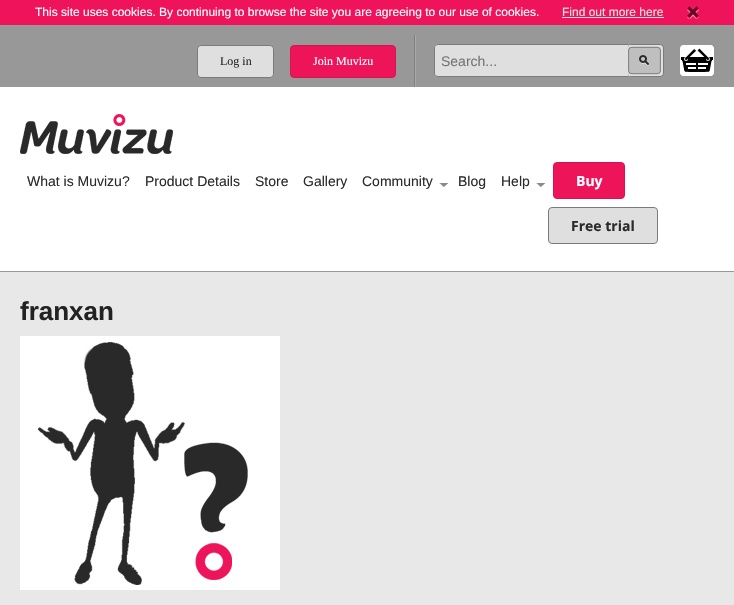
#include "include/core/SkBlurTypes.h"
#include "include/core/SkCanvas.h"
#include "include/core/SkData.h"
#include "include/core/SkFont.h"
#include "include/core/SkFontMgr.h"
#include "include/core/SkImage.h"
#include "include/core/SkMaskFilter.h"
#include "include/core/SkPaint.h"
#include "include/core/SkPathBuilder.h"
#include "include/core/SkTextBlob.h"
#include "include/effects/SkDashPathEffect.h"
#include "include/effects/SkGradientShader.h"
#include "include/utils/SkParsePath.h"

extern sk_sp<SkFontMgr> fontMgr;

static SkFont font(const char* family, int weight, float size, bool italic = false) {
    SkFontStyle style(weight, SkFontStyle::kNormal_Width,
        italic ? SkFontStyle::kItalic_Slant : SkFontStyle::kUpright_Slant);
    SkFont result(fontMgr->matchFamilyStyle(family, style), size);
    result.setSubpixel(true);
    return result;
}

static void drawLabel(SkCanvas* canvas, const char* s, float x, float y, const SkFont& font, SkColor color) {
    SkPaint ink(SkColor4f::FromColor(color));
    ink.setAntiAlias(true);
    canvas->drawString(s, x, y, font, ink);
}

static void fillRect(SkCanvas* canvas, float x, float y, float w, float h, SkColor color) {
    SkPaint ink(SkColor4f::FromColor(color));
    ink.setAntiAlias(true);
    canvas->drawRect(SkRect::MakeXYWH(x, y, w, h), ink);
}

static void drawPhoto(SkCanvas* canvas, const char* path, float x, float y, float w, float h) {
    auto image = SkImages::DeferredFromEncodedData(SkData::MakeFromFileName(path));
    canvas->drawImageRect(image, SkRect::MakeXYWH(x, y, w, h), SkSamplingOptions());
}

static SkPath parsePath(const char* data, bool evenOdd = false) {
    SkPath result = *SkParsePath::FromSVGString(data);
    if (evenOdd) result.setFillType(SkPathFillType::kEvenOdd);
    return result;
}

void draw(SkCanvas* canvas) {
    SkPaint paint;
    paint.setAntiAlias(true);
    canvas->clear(0xFFFFFFFF);
    fillRect(canvas, 0, 0, 734, 25, 0xFFEF135B);
    SkFont font1 = font("Liberation Sans", 400, 12);
    drawLabel(canvas, "This site uses cookies. By continuing to browse the site you are agreeing to our use of cookies.", 35, 16, font1, 0xFFFFFFFF);
    drawLabel(canvas, "Find out more here", 562, 16, font1, 0xFFE5E3E3);
    fillRect(canvas, 562, 17, 102, 1, 0xFFE5E3E3);
    drawPhoto(canvas, "assets/img1.png", 687, 6, 12, 13);
    fillRect(canvas, 0, 25, 734, 62, 0xFF989898);
    fillRect(canvas, 415, 35, 1, 52, 0xFFA9A9A9);
    paint.setColor(0xFFDFDFDF);
    canvas->drawRoundRect(SkRect::MakeXYWH(197.5f, 45.5f, 76, 32), 3.5f, 3.5f, paint);
    paint.setStroke(true);
    paint.setStrokeWidth(1);
    paint.setColor(0xFF7B7B7B);
    canvas->drawRoundRect(SkRect::MakeXYWH(197.5f, 45.5f, 76, 32), 3.5f, 3.5f, paint);
    SkFont font2 = font("Liberation Serif", 400, 12);
    drawLabel(canvas, "Log in", 220, 65, font2, 0xFF2C2A2A);
    fillRect(canvas, 414, 35, 1, 52, 0xFF808080);
    paint.setStroke(false);
    paint.setColor(0xFFED145A);
    canvas->drawRoundRect(SkRect::MakeXYWH(290.5f, 45.5f, 105, 32), 3.5f, 3.5f, paint);
    paint.setStroke(true);
    paint.setColor(0xFFD51452);
    canvas->drawRoundRect(SkRect::MakeXYWH(290.5f, 45.5f, 105, 32), 3.5f, 3.5f, paint);
    drawLabel(canvas, "Join Muvizu", 313, 65, font2, 0xFFFFFFFF);
    paint.setStroke(false);
    paint.setColor(0xFFDFDFDF);
    canvas->drawPath(parsePath("M438 44H628V77H438C436 77 434 75 434 73V48C434 46 436 44 438 44Z"), paint);
    paint.setColor(0xFF7B7B7B);
    canvas->drawPath(parsePath("M438 44H628V77H438C436 77 434 75 434 73V48C434 46 436 44 438 44ZM438 45H628V76H438C436 76 435 75 435 73V48C435 46 436 45 438 45Z", true), paint);
    SkFont font3 = font("Liberation Sans", 400, 14);
    drawLabel(canvas, "Search...", 441, 66, font3, 0xFF757575);
    drawPhoto(canvas, "assets/img2.png", 628, 44, 36, 33);
    drawPhoto(canvas, "assets/img3.png", 680, 45, 34, 31);
    fillRect(canvas, 0, 271, 734, 1, 0xFF989898);
    drawPhoto(canvas, "assets/img4.png", 20, 114, 153, 40);
    drawLabel(canvas, "What is Muvizu?", 27, 186, font3, 0xFF2C2A2A);
    drawLabel(canvas, "Product Details", 145, 186, font3, 0xFF2C2A2A);
    drawLabel(canvas, "Store", 255, 186, font3, 0xFF2C2A2A);
    drawLabel(canvas, "Gallery", 303, 186, font3, 0xFF2C2A2A);
    drawPhoto(canvas, "assets/img5.png", 439, 183, 10, 4);
    drawLabel(canvas, "Community", 362, 186, font3, 0xFF2C2A2A);
    drawLabel(canvas, "Blog", 458, 186, font3, 0xFF2C2A2A);
    drawPhoto(canvas, "assets/img5.png", 536, 183, 10, 4);
    drawLabel(canvas, "Help", 501, 186, font3, 0xFF2C2A2A);
    paint.setColor(0xFFED145A);
    canvas->drawRoundRect(SkRect::MakeXYWH(553.5f, 162.5f, 71, 36), 3.5f, 3.5f, paint);
    paint.setStroke(true);
    paint.setColor(0xFFD51452);
    canvas->drawRoundRect(SkRect::MakeXYWH(553.5f, 162.5f, 71, 36), 3.5f, 3.5f, paint);
    SkFont font4 = font("Open Sans", 700, 14);
    drawLabel(canvas, "Buy", 576, 186, font4, 0xFFFFFFFF);
    paint.setStroke(false);
    paint.setColor(0xFFDFDFDF);
    canvas->drawRoundRect(SkRect::MakeXYWH(548.5f, 207.5f, 109, 36), 3.5f, 3.5f, paint);
    paint.setStroke(true);
    paint.setColor(0xFF7B7B7B);
    canvas->drawRoundRect(SkRect::MakeXYWH(548.5f, 207.5f, 109, 36), 3.5f, 3.5f, paint);
    drawLabel(canvas, "Free trial", 571, 231, font4, 0xFF2C2A2A);
    fillRect(canvas, 0, 272, 734, 333, 0xFFE8E8E8);
    SkFont font5 = font("Liberation Sans", 700, 26);
    drawLabel(canvas, "franxan", 20, 320, font5, 0xFF222222);
    drawPhoto(canvas, "assets/img6.png", 20, 336, 260, 254);
}
